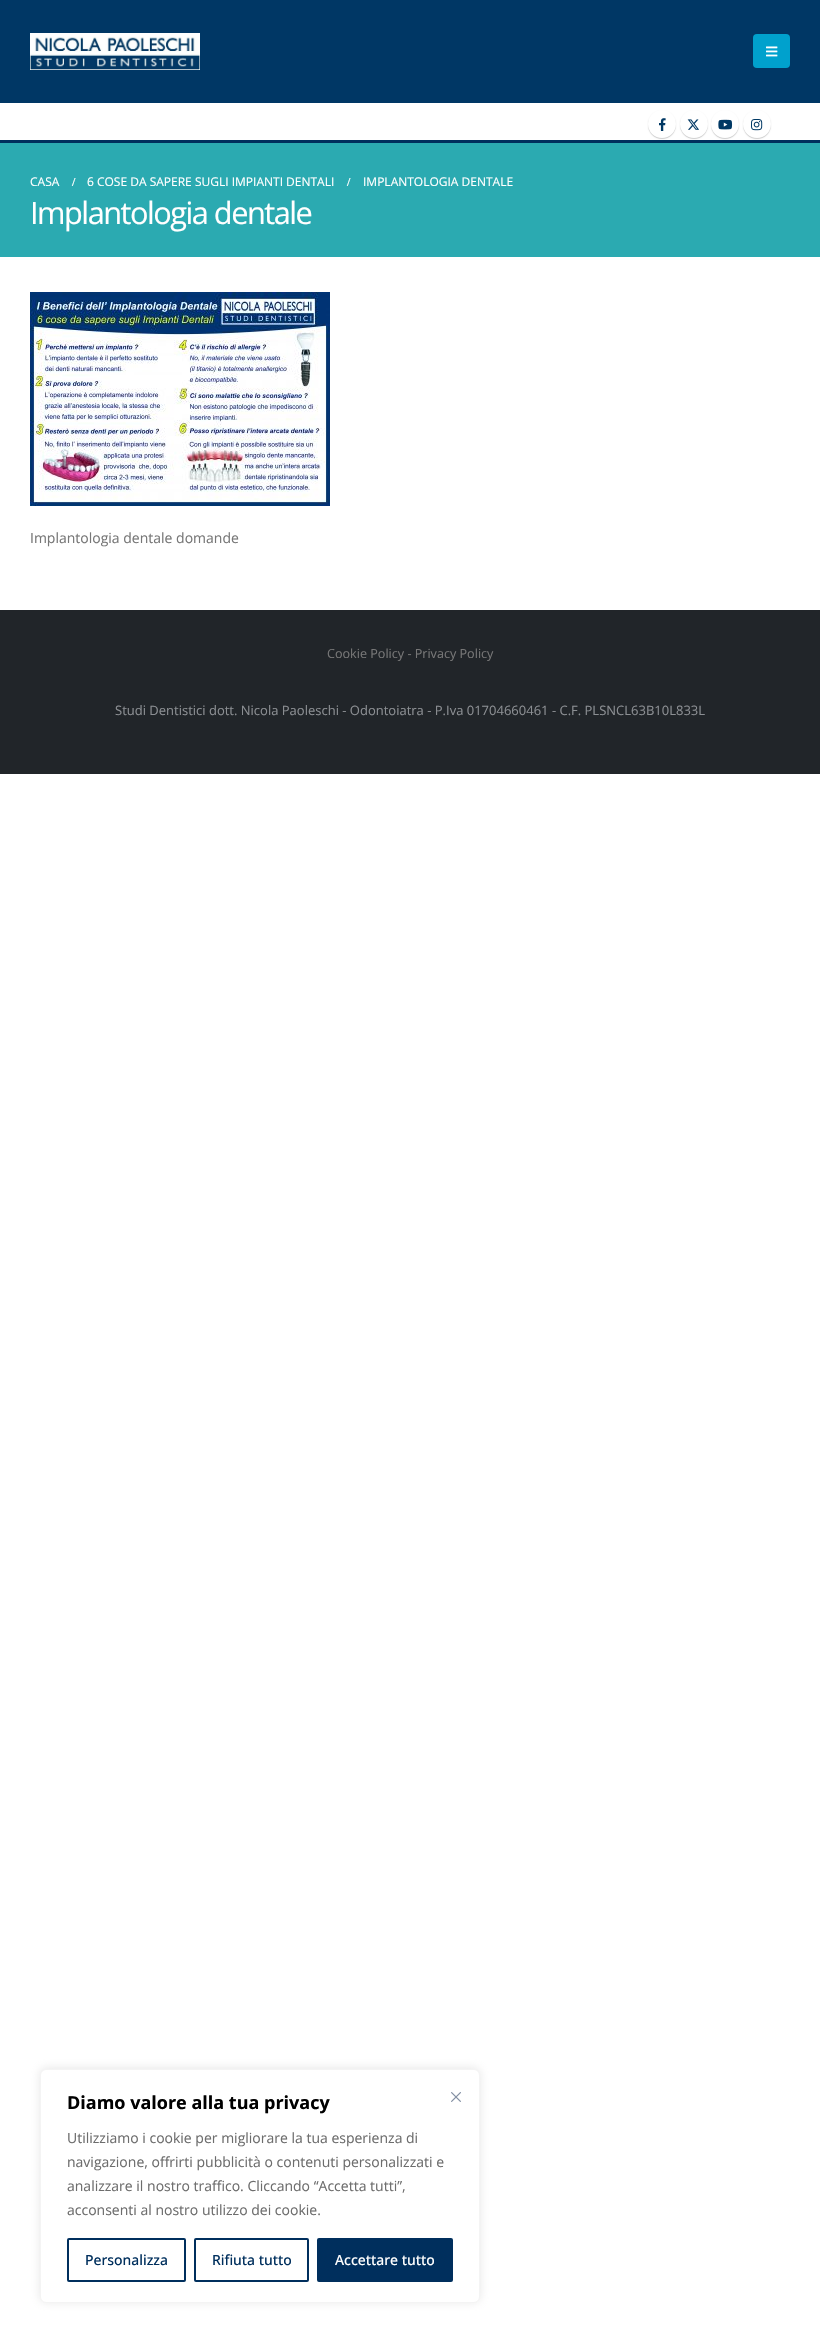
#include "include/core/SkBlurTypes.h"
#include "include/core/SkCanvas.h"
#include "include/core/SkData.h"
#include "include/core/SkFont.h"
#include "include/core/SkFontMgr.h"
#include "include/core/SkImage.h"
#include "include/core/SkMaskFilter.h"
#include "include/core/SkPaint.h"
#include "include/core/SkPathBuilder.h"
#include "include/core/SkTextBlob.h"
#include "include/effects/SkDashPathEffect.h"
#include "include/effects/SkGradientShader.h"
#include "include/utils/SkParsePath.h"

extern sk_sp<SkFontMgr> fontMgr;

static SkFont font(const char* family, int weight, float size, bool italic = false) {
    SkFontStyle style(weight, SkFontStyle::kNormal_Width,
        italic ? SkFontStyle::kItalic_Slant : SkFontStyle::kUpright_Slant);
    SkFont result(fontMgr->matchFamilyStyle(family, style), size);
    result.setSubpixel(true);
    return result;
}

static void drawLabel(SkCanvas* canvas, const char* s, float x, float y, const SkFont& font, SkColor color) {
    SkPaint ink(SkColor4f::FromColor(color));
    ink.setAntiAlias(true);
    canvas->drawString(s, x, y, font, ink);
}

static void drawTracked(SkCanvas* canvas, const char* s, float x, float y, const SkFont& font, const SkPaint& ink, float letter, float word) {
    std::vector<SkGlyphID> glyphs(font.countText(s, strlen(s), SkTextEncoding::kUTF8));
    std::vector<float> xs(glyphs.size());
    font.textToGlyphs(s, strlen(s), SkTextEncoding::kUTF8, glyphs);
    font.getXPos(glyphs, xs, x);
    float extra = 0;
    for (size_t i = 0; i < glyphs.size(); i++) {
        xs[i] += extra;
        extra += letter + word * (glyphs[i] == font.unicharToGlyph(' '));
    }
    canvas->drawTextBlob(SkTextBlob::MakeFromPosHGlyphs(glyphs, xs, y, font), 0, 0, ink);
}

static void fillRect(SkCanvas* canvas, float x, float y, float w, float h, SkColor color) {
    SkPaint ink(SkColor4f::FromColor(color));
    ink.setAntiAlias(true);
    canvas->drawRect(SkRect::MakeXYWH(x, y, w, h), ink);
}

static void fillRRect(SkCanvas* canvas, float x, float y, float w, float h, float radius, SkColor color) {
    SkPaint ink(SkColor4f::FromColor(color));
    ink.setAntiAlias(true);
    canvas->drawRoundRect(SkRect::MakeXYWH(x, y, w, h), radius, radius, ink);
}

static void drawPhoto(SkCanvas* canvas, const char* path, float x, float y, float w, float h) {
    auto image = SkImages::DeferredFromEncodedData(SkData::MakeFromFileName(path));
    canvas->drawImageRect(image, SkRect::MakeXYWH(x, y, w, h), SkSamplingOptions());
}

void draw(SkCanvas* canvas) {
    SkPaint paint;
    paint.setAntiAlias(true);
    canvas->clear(0xFFFFFFFF);
    fillRect(canvas, 0, 0, 820, 103, 0xFF003765);
    drawPhoto(canvas, "assets/img1.png", 30, 33, 170, 37);
    fillRRect(canvas, 753, 34, 37, 34, 4, 0xFF00A1CD);
    drawPhoto(canvas, "assets/img2.png", 766, 46, 12, 11);
    paint.setColor(0x33000000);
    paint.setMaskFilter(SkMaskFilter::MakeBlur(kNormal_SkBlurStyle, 0.5f));
    canvas->drawRoundRect(SkRect::MakeXYWH(648, 111, 28, 28), 14, 14, paint);
    paint.setMaskFilter(nullptr);
    paint.setColor(0xFFFFFFFF);
    canvas->drawCircle(662, 124, 14, paint);
    drawPhoto(canvas, "assets/img3.png", 659, 118, 7, 13);
    paint.setColor(0x33000000);
    paint.setMaskFilter(SkMaskFilter::MakeBlur(kNormal_SkBlurStyle, 0.5f));
    canvas->drawRoundRect(SkRect::MakeXYWH(680, 111, 28, 28), 14, 14, paint);
    paint.setMaskFilter(nullptr);
    paint.setColor(0xFFFFFFFF);
    canvas->drawCircle(694, 124, 14, paint);
    drawPhoto(canvas, "assets/img4.png", 687, 119, 12, 11);
    paint.setColor(0x33000000);
    paint.setMaskFilter(SkMaskFilter::MakeBlur(kNormal_SkBlurStyle, 0.5f));
    canvas->drawRoundRect(SkRect::MakeXYWH(711, 111, 28, 28), 14, 14, paint);
    paint.setMaskFilter(nullptr);
    paint.setColor(0xFFFFFFFF);
    canvas->drawCircle(725, 124, 14, paint);
    drawPhoto(canvas, "assets/img5.png", 718, 119, 15, 11);
    paint.setColor(0x33000000);
    paint.setMaskFilter(SkMaskFilter::MakeBlur(kNormal_SkBlurStyle, 0.5f));
    canvas->drawRoundRect(SkRect::MakeXYWH(743, 111, 28, 28), 14, 14, paint);
    paint.setMaskFilter(nullptr);
    paint.setColor(0xFFFFFFFF);
    canvas->drawCircle(757, 124, 14, paint);
    drawPhoto(canvas, "assets/img6.png", 751, 119, 12, 12);
    fillRect(canvas, 0, 143, 820, 114, 0xFF2BAAB1);
    fillRect(canvas, 0, 140, 820, 3, 0xFF002F5D);
    SkFont font1 = font("Open Sans", 400, 12);
    drawLabel(canvas, "CASA", 30, 186, font1, 0xFFFFFFFF);
    SkFont font2 = font("Liberation Serif", 700, 12);
    drawLabel(canvas, "/", 72, 186, font2, 0xFFFFFFFF);
    drawLabel(canvas, "6 COSE DA SAPERE SUGLI IMPIANTI DENTALI", 87, 186, font1, 0xFFFFFFFF);
    drawLabel(canvas, "/", 347, 186, font2, 0xFFFFFFFF);
    drawLabel(canvas, "IMPLANTOLOGIA DENTALE", 363, 186, font1, 0xFFFFFFFF);
    SkFont font3 = font("Open Sans", 400, 30.75f);
    drawTracked(canvas, "Implantologia dentale", 30, 224, font3, paint, -1.5f, 0);
    drawPhoto(canvas, "assets/img7.png", 30, 292, 300, 214);
    SkFont font4 = font("Open Sans", 400, 14);
    drawLabel(canvas, "Implantologia dentale domande", 30, 543, font4, 0xFF777777);
    fillRect(canvas, 0, 610, 820, 164, 0xFF212529);
    SkFont font5 = font("Open Sans", 400, 12.6f);
    drawLabel(canvas, "Cookie Policy - Privacy Policy", 327, 658, font5, 0xFF777777);
    SkFont font6 = font("Open Sans", 400, 13);
    drawLabel(canvas, "Studi Dentistici dott. Nicola Paoleschi - Odontoiatra - P.Iva 01704660461 - C.F. PLSNCL63B10L833L", 115, 715, font6, 0xFF8B8E92);
    paint.setColor(0x4DACABAB);
    paint.setMaskFilter(SkMaskFilter::MakeBlur(kNormal_SkBlurStyle, 5));
    canvas->drawRoundRect(SkRect::MakeXYWH(40, 2068, 440, 234), 6, 6, paint);
    paint.setMaskFilter(nullptr);
    paint.setColor(0xFFFFFFFF);
    canvas->drawRoundRect(SkRect::MakeXYWH(40.5f, 2069.5f, 439, 233), 5.5f, 5.5f, paint);
    paint.setStroke(true);
    paint.setStrokeWidth(1);
    paint.setColor(0xFFF4F4F4);
    canvas->drawRoundRect(SkRect::MakeXYWH(40.5f, 2069.5f, 439, 233), 5.5f, 5.5f, paint);
    SkFont font7 = font("Open Sans", 700, 18);
    drawLabel(canvas, "Diamo valore alla tua privacy", 67, 2109, font7, 0xFF000000);
    drawLabel(canvas, "Utilizziamo i cookie per migliorare la tua esperienza di", 67, 2143, font4, 0xFF6D6D6D);
    drawLabel(canvas, "navigazione, offrirti pubblicità o contenuti personalizzati e", 67, 2167, font4, 0xFF6D6D6D);
    drawLabel(canvas, "analizzare il nostro traffico. Cliccando “Accetta tutti”,", 67, 2191, font4, 0xFF6D6D6D);
    drawLabel(canvas, "acconsenti al nostro utilizzo dei cookie.", 67, 2215, font4, 0xFF6D6D6D);
    paint.setStrokeWidth(2);
    paint.setColor(0xFF002F5D);
    canvas->drawRoundRect(SkRect::MakeXYWH(68, 2239, 117, 42), 1, 1, paint);
    SkFont font8 = font("Open Sans", 500, 14);
    drawLabel(canvas, "Personalizza", 85, 2265, font8, 0xFF002F5D);
    canvas->drawRoundRect(SkRect::MakeXYWH(195, 2239, 113, 42), 1, 1, paint);
    drawLabel(canvas, "Rifiuta tutto", 212, 2265, font8, 0xFF002F5D);
    paint.setStroke(false);
    canvas->drawRoundRect(SkRect::MakeXYWH(318, 2239, 134, 42), 1, 1, paint);
    paint.setStroke(true);
    canvas->drawRoundRect(SkRect::MakeXYWH(318, 2239, 134, 42), 1, 1, paint);
    drawLabel(canvas, "Accettare tutto", 335, 2265, font8, 0xFFFFFFFF);
    drawPhoto(canvas, "assets/img8.png", 451, 2092, 10, 10);
}
